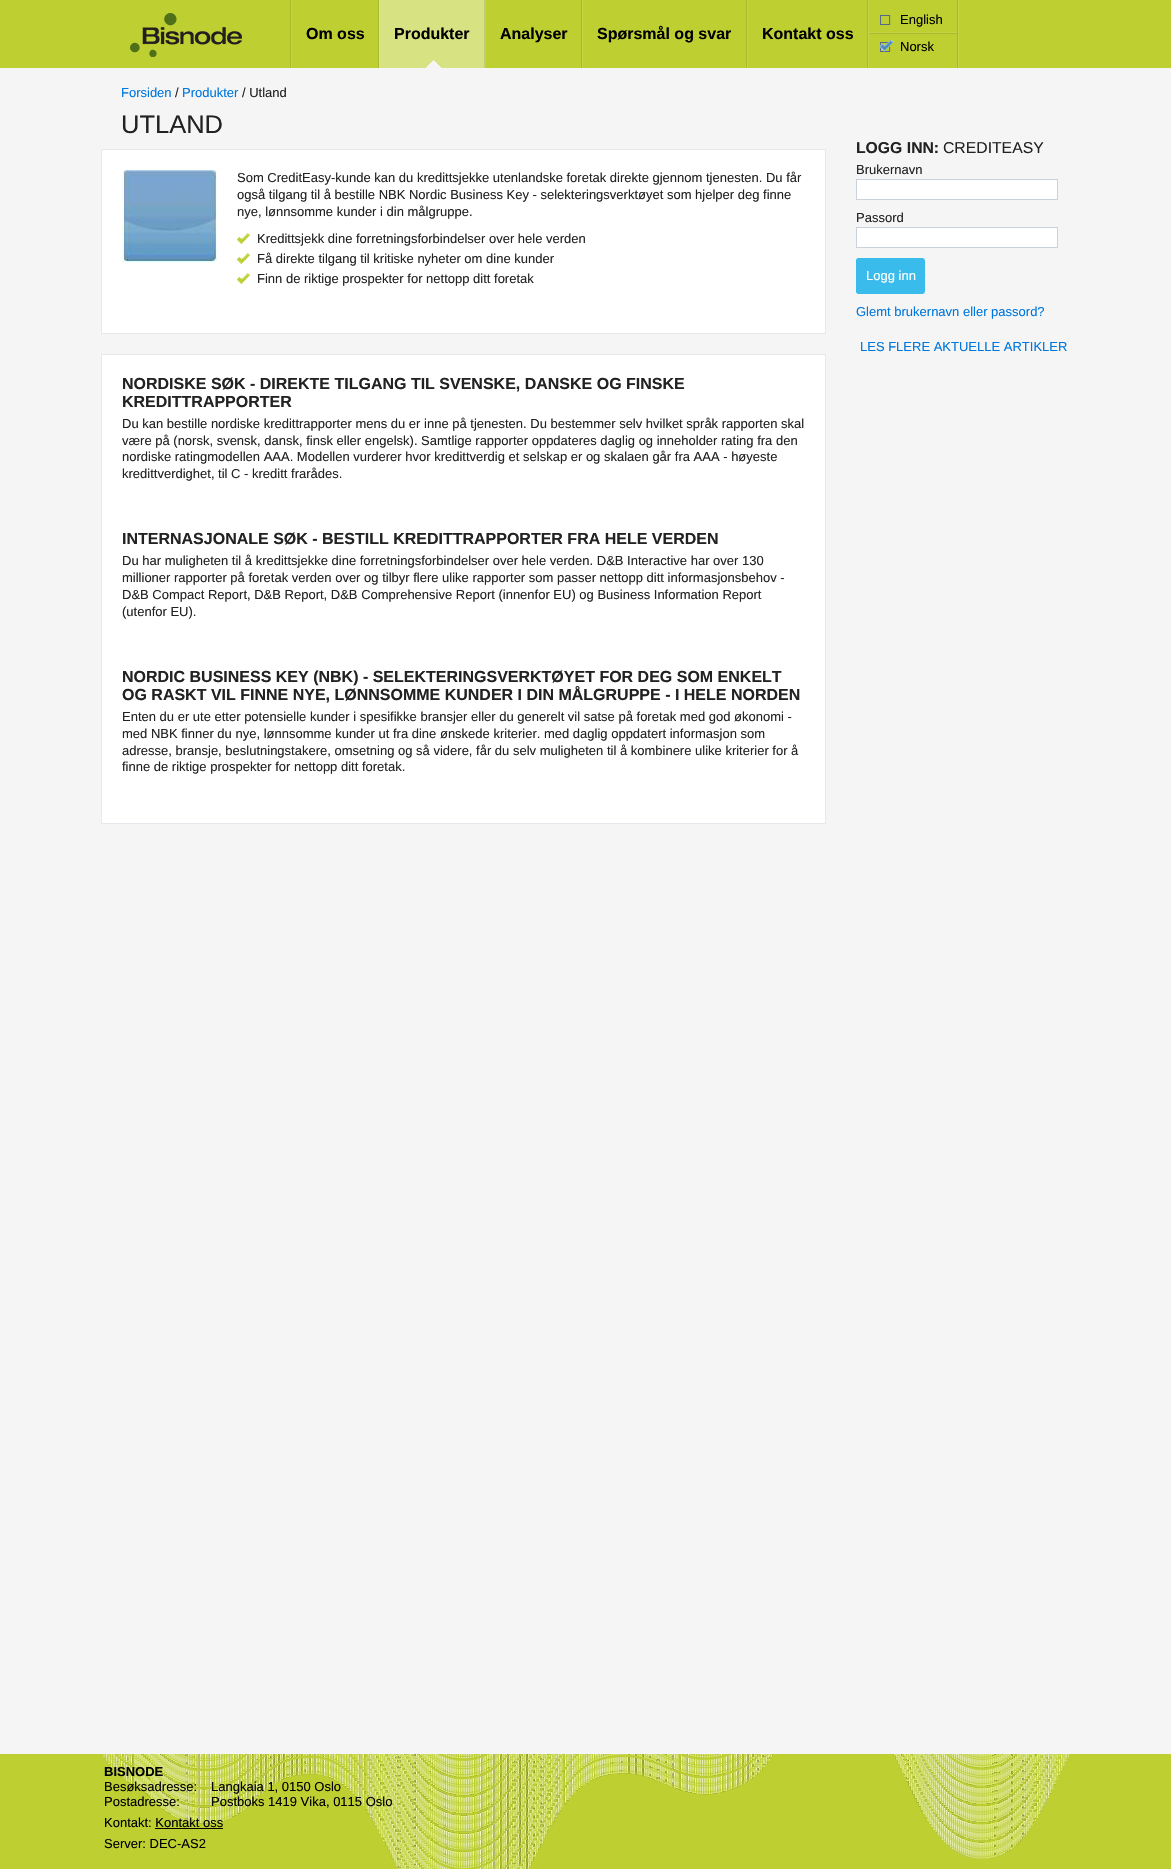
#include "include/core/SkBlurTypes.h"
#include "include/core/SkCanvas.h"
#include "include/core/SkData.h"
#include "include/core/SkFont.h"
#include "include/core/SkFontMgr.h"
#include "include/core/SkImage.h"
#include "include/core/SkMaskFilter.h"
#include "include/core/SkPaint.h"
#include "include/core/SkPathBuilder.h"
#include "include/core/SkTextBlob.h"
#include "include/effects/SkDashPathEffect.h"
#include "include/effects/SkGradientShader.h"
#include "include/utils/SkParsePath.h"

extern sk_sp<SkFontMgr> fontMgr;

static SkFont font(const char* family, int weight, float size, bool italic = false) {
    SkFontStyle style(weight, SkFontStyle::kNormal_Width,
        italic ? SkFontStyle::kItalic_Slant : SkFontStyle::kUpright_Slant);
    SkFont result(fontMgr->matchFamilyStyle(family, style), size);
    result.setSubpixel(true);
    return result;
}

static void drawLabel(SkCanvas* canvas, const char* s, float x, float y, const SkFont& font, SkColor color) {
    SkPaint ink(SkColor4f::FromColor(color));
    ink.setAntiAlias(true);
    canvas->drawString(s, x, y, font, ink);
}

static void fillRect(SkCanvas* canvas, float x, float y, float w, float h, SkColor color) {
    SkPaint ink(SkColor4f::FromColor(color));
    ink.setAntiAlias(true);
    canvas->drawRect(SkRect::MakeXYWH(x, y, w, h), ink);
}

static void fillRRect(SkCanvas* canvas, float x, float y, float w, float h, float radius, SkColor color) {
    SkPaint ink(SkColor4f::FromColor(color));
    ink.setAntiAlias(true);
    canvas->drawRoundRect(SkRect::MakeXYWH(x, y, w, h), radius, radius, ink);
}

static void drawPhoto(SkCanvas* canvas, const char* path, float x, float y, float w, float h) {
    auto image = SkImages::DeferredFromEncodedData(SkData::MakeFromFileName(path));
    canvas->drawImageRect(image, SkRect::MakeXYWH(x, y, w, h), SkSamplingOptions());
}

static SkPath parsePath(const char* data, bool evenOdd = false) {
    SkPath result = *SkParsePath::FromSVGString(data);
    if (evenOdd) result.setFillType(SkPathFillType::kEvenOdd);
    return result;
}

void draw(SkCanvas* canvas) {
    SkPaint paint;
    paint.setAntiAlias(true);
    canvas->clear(0xFFF5F5F5);
    fillRect(canvas, 0, 0, 1171, 68, 0xFFBDCF31);
    fillRect(canvas, 957, 0, 1, 68, 0xFFAABA2C);
    drawPhoto(canvas, "assets/img1.png", 130, 13, 112, 44);
    fillRect(canvas, 291, 0, 1, 68, 0xFFC4D446);
    fillRect(canvas, 290, 0, 1, 68, 0xFFAABA2C);
    SkFont font1 = font("Liberation Sans", 700, 16);
    drawLabel(canvas, "Om oss", 306, 39, font1, 0xFF000000);
    fillRect(canvas, 380, 0, 104, 68, 0xFFD7E283);
    fillRect(canvas, 379, 0, 1, 68, 0xFFDBE58F);
    fillRect(canvas, 378, 0, 1, 68, 0xFFAABA2C);
    drawPhoto(canvas, "assets/img2.png", 426, 60, 16, 8);
    drawLabel(canvas, "Produkter", 394, 39, font1, 0xFF000000);
    fillRect(canvas, 485, 0, 1, 68, 0xFFC4D446);
    fillRect(canvas, 484, 0, 1, 68, 0xFFC2CB76);
    drawLabel(canvas, "Analyser", 500, 39, font1, 0xFF000000);
    fillRect(canvas, 582, 0, 1, 68, 0xFFC4D446);
    fillRect(canvas, 581, 0, 1, 68, 0xFFAABA2C);
    drawLabel(canvas, "Spørsmål og svar", 597, 39, font1, 0xFF000000);
    fillRect(canvas, 747, 0, 1, 68, 0xFFC4D446);
    fillRect(canvas, 746, 0, 1, 68, 0xFFAABA2C);
    drawLabel(canvas, "Kontakt oss", 762, 39, font1, 0xFF000000);
    fillRect(canvas, 868, 0, 1, 68, 0xFFC4D446);
    fillRect(canvas, 867, 0, 1, 68, 0xFFAABA2C);
    drawPhoto(canvas, "assets/img3.png", 880, 15, 11, 10);
    SkFont font2 = font("Liberation Sans", 400, 13);
    drawLabel(canvas, "English", 900, 24, font2, 0xFF000000);
    fillRect(canvas, 870, 32, 88, 1, 0xFFC4D446);
    fillRect(canvas, 957, 32, 1, 1, 0xFFB0BF3F);
    fillRect(canvas, 870, 33, 88, 1, 0xFFAABA2C);
    fillRect(canvas, 957, 33, 1, 1, 0xFF99A728);
    drawPhoto(canvas, "assets/img4.png", 880, 40, 14, 12);
    drawLabel(canvas, "Norsk", 900, 51, font2, 0xFF000000);
    fillRect(canvas, 958, 0, 1, 68, 0xFFC4D446);
    drawLabel(canvas, "Forsiden", 121, 97, font2, 0xFF0077DD);
    drawLabel(canvas, "/", 175, 97, font2, 0xFF222222);
    drawLabel(canvas, "Produkter", 182, 97, font2, 0xFF0077DD);
    drawLabel(canvas, "/ Utland", 242, 97, font2, 0xFF222222);
    SkFont font3 = font("Liberation Sans", 400, 25.5f);
    drawLabel(canvas, "UTLAND", 121, 133, font3, 0xFF222222);
    paint.setColor(0xFFFFFFFF);
    canvas->drawRect(SkRect::MakeXYWH(101.5f, 149.5f, 724, 184), paint);
    paint.setStroke(true);
    paint.setStrokeWidth(1);
    paint.setColor(0xFFE5E8EC);
    canvas->drawRect(SkRect::MakeXYWH(101.5f, 149.5f, 724, 184), paint);
    drawPhoto(canvas, "assets/img5.png", 122, 170, 95, 92);
    drawLabel(canvas, "Som CreditEasy-kunde kan du kredittsjekke utenlandske foretak direkte gjennom tjenesten. Du får", 237, 182, font2, 0xFF222222);
    drawLabel(canvas, "også tilgang til å bestille NBK Nordic Business Key - selekteringsverktøyet som hjelper deg finne", 237, 199, font2, 0xFF222222);
    drawLabel(canvas, "nye, lønnsomme kunder i din målgruppe.", 237, 216, font2, 0xFF222222);
    drawPhoto(canvas, "assets/img6.png", 237, 233, 14, 11);
    drawLabel(canvas, "Kredittsjekk dine forretningsforbindelser over hele verden", 257, 243, font2, 0xFF222222);
    drawPhoto(canvas, "assets/img6.png", 237, 253, 14, 11);
    drawLabel(canvas, "Få direkte tilgang til kritiske nyheter om dine kunder", 257, 263, font2, 0xFF222222);
    drawPhoto(canvas, "assets/img6.png", 237, 273, 14, 11);
    drawLabel(canvas, "Finn de riktige prospekter for nettopp ditt foretak", 257, 283, font2, 0xFF222222);
    paint.setStroke(false);
    paint.setColor(0xFFFFFFFF);
    canvas->drawRect(SkRect::MakeXYWH(101.5f, 354.5f, 724, 469), paint);
    paint.setStroke(true);
    paint.setColor(0xFFE5E8EC);
    canvas->drawRect(SkRect::MakeXYWH(101.5f, 354.5f, 724, 469), paint);
    drawLabel(canvas, "NORDISKE SØK - DIREKTE TILGANG TIL SVENSKE, DANSKE OG FINSKE", 122, 389, font1, 0xFF222222);
    drawLabel(canvas, "KREDITTRAPPORTER", 122, 407, font1, 0xFF222222);
    drawLabel(canvas, "Du kan bestille nordiske kredittrapporter mens du er inne på tjenesten. Du bestemmer selv hvilket språk rapporten skal", 122, 428, font2, 0xFF222222);
    drawLabel(canvas, "være på (norsk, svensk, dansk, finsk eller engelsk). Samtlige rapporter oppdateres daglig og inneholder rating fra den", 122, 445, font2, 0xFF222222);
    drawLabel(canvas, "nordiske ratingmodellen AAA. Modellen vurderer hvor kredittverdig et selskap er og skalaen går fra AAA - høyeste", 122, 461, font2, 0xFF222222);
    drawLabel(canvas, "kredittverdighet, til C - kreditt frarådes.", 122, 478, font2, 0xFF222222);
    drawLabel(canvas, "INTERNASJONALE SØK - BESTILL KREDITTRAPPORTER FRA HELE VERDEN", 122, 544, font1, 0xFF222222);
    drawLabel(canvas, "Du har muligheten til å kredittsjekke dine forretningsforbindelser over hele verden. D&B Interactive har over 130", 122, 565, font2, 0xFF222222);
    drawLabel(canvas, "millioner rapporter på foretak verden over og tilbyr flere ulike rapporter som passer nettopp ditt informasjonsbehov -", 122, 582, font2, 0xFF222222);
    drawLabel(canvas, "D&B Compact Report, D&B Report, D&B Comprehensive Report (innenfor EU) og Business Information Report", 122, 599, font2, 0xFF222222);
    drawLabel(canvas, "(utenfor EU).", 122, 616, font2, 0xFF222222);
    drawLabel(canvas, "NORDIC BUSINESS KEY (NBK) - SELEKTERINGSVERKTØYET FOR DEG SOM ENKELT", 122, 682, font1, 0xFF222222);
    drawLabel(canvas, "OG RASKT VIL FINNE NYE, LØNNSOMME KUNDER I DIN MÅLGRUPPE - I HELE NORDEN", 122, 700, font1, 0xFF222222);
    drawLabel(canvas, "Enten du er ute etter potensielle kunder i spesifikke bransjer eller du generelt vil satse på foretak med god økonomi -", 122, 721, font2, 0xFF222222);
    drawLabel(canvas, "med NBK finner du nye, lønnsomme kunder ut fra dine ønskede kriterier. med daglig oppdatert informasjon som", 122, 738, font2, 0xFF222222);
    drawLabel(canvas, "adresse, bransje, beslutningstakere, omsetning og så videre, får du selv muligheten til å kombinere ulike kriterier for å", 122, 755, font2, 0xFF222222);
    drawLabel(canvas, "finne de riktige prospekter for nettopp ditt foretak.", 122, 771, font2, 0xFF222222);
    SkFont font4 = font("Liberation Sans", 700, 15.75f);
    drawLabel(canvas, "LOGG INN:", 856, 153, font4, 0xFF222222);
    SkFont font5 = font("Liberation Sans", 400, 15.75f);
    drawLabel(canvas, "CREDITEASY", 943, 153, font5, 0xFF222222);
    drawLabel(canvas, "Brukernavn", 856, 174, font2, 0xFF222222);
    paint.setStroke(false);
    paint.setColor(0xFFFFFFFF);
    canvas->drawRect(SkRect::MakeXYWH(856.5f, 179.5f, 201, 20), paint);
    paint.setStroke(true);
    paint.setColor(0xFFCAD1DC);
    canvas->drawRect(SkRect::MakeXYWH(856.5f, 179.5f, 201, 20), paint);
    drawLabel(canvas, "Passord", 856, 222, font2, 0xFF222222);
    paint.setStroke(false);
    paint.setColor(0xFFFFFFFF);
    canvas->drawRect(SkRect::MakeXYWH(856.5f, 227.5f, 201, 20), paint);
    paint.setStroke(true);
    paint.setColor(0xFFCAD1DC);
    canvas->drawRect(SkRect::MakeXYWH(856.5f, 227.5f, 201, 20), paint);
    fillRRect(canvas, 856, 258, 69, 36, 3, 0xFF39BBEC);
    paint.setStroke(false);
    paint.setColor(0xFF39BBEC);
    canvas->drawPath(parsePath("M859 258H915V294H859C857.5 294 856 292.5 856 291V261C856 259.5 857.5 258 859 258Z"), paint);
    drawLabel(canvas, "Logg inn", 866, 280, font2, 0xFFFFFFFF);
    drawLabel(canvas, "Glemt brukernavn eller passord?", 856, 316, font2, 0xFF0077DD);
    drawLabel(canvas, "LES FLERE AKTUELLE ARTIKLER", 860, 351, font2, 0xFF0077DD);
    fillRect(canvas, 0, 1754, 1171, 115, 0xFFBDCF31);
    drawPhoto(canvas, "assets/img7.png", 103, 1754, 966, 115);
    SkFont font6 = font("Liberation Sans", 700, 13);
    drawLabel(canvas, "BISNODE", 104, 1776, font6, 0xFF000000);
    drawLabel(canvas, "Besøksadresse:", 104, 1791, font2, 0xFF000000);
    drawLabel(canvas, "Langkaia 1, 0150 Oslo", 211, 1791, font2, 0xFF000000);
    drawLabel(canvas, "Postadresse:", 104, 1806, font2, 0xFF000000);
    drawLabel(canvas, "Postboks 1419 Vika, 0115 Oslo", 211, 1806, font2, 0xFF000000);
    drawLabel(canvas, "Kontakt: Kontakt oss", 104, 1827, font2, 0xFF000000);
    fillRect(canvas, 155, 1828, 68, 1, 0xFF000000);
    drawLabel(canvas, "Server: DEC-AS2", 104, 1848, font2, 0xFF000000);
}
